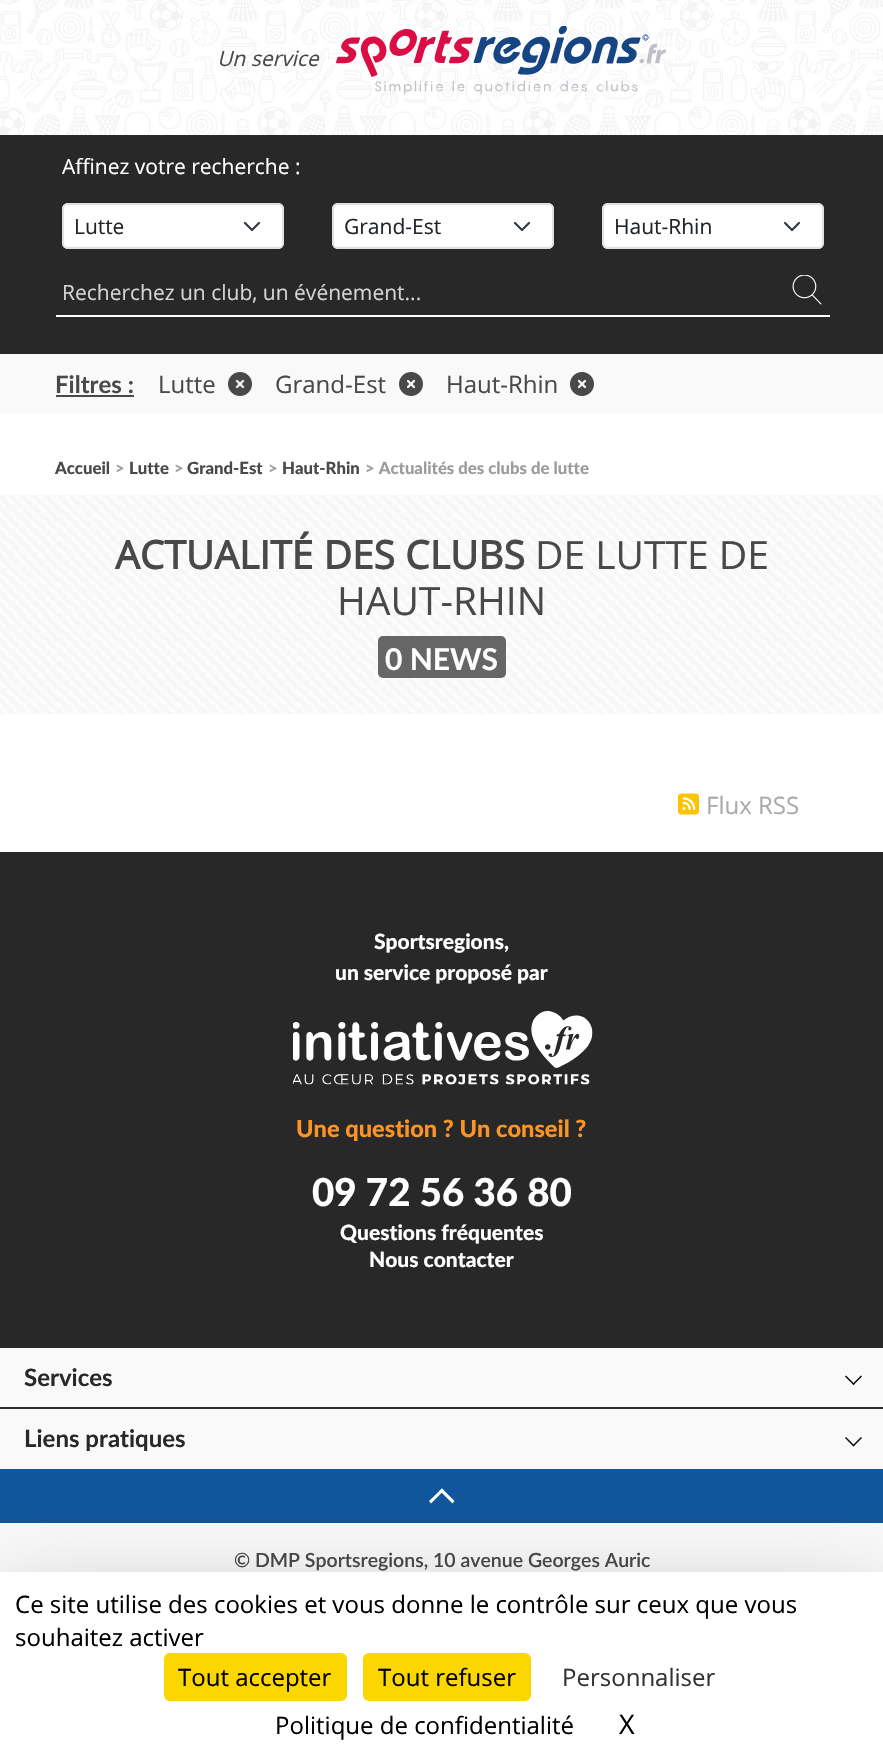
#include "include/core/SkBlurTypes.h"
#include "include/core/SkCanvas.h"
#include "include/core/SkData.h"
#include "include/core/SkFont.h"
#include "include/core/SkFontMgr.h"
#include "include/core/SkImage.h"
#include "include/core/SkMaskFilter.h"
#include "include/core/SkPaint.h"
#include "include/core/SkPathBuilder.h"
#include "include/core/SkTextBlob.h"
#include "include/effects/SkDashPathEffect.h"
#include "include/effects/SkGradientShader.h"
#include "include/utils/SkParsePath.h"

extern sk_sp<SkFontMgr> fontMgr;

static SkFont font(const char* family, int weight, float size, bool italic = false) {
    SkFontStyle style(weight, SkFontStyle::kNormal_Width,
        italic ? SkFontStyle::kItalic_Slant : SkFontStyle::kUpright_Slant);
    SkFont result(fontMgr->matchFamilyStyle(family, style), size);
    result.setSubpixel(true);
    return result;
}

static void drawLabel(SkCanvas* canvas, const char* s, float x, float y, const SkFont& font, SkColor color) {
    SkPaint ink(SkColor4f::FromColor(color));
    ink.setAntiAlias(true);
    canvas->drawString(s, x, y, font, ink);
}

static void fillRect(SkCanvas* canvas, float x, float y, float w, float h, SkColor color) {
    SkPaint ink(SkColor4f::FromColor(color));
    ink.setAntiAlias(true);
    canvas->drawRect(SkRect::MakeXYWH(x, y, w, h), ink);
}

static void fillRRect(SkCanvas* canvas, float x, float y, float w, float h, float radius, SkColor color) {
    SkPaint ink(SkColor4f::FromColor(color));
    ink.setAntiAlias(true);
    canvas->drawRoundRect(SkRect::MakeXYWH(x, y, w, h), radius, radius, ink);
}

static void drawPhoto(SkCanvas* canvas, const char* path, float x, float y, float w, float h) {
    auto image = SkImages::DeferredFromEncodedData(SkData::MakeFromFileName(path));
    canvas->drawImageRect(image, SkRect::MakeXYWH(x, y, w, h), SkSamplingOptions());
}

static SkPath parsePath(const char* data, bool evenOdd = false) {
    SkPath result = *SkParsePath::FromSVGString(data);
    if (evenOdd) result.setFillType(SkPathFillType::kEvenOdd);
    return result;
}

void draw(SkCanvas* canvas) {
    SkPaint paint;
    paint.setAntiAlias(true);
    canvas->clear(0xFFF9F9F9);
    drawPhoto(canvas, "assets/img1.png", 0, 0, 883, 135);
    SkFont font1 = font("Open Sans", 400, 21, true);
    drawLabel(canvas, "Un service", 217, 66, font1, 0xFF494949);
    drawPhoto(canvas, "assets/img2.png", 336, 26, 330, 69);
    fillRect(canvas, 0, 414, 883, 438, 0xFFFFFFFF);
    fillRect(canvas, 0, 135, 883, 219, 0xFF282828);
    SkFont font2 = font("Open Sans", 400, 21);
    drawLabel(canvas, "Affinez votre recherche :", 62, 174, font2, 0xFFFFFFFF);
    fillRRect(canvas, 62, 203, 222, 46, 6, 0xFFFFFFFF);
    paint.setStroke(true);
    paint.setStrokeWidth(2.2f);
    paint.setStrokeCap(SkPaint::kRound_Cap);
    paint.setStrokeJoin(SkPaint::kRound_Join);
    paint.setColor(0xFF343A40);
    canvas->drawPath(parsePath("M245 223L252 230L259 223"), paint);
    paint.setStrokeWidth(2);
    paint.setStrokeCap(SkPaint::kButt_Cap);
    paint.setStrokeJoin(SkPaint::kMiter_Join);
    paint.setColor(0xFFDEE2E6);
    canvas->drawRoundRect(SkRect::MakeXYWH(63, 204, 220, 44), 5, 5, paint);
    drawLabel(canvas, "Lutte", 74, 234, font2, 0xFF212529);
    fillRRect(canvas, 332, 203, 222, 46, 6, 0xFFFFFFFF);
    paint.setStrokeWidth(2.2f);
    paint.setStrokeCap(SkPaint::kRound_Cap);
    paint.setStrokeJoin(SkPaint::kRound_Join);
    paint.setColor(0xFF343A40);
    canvas->drawPath(parsePath("M515 223L522 230L529 223"), paint);
    paint.setStrokeWidth(2);
    paint.setStrokeCap(SkPaint::kButt_Cap);
    paint.setStrokeJoin(SkPaint::kMiter_Join);
    paint.setColor(0xFFDEE2E6);
    canvas->drawRoundRect(SkRect::MakeXYWH(333, 204, 220, 44), 5, 5, paint);
    drawLabel(canvas, "Grand-Est", 344, 234, font2, 0xFF212529);
    fillRRect(canvas, 602, 203, 222, 46, 6, 0xFFFFFFFF);
    paint.setStrokeWidth(2.2f);
    paint.setStrokeCap(SkPaint::kRound_Cap);
    paint.setStrokeJoin(SkPaint::kRound_Join);
    paint.setColor(0xFF343A40);
    canvas->drawPath(parsePath("M785 223L792 230L799 223"), paint);
    paint.setStrokeWidth(2);
    paint.setStrokeCap(SkPaint::kButt_Cap);
    paint.setStrokeJoin(SkPaint::kMiter_Join);
    paint.setColor(0xFFDEE2E6);
    canvas->drawRoundRect(SkRect::MakeXYWH(603, 204, 220, 44), 5, 5, paint);
    drawLabel(canvas, "Haut-Rhin", 614, 234, font2, 0xFF212529);
    fillRect(canvas, 56, 315, 774, 2, 0xFFFFFFFF);
    drawLabel(canvas, "Recherchez un club, un événement...", 62, 300, font2, 0xFFD4D4D4);
    drawPhoto(canvas, "assets/img3.png", 792, 275, 30, 30);
    SkFont font3 = font("Lato", 700, 24);
    drawLabel(canvas, "Filtres :", 55, 393, font3, 0xFF494949);
    fillRect(canvas, 56, 395, 78, 2, 0xFF494949);
    SkFont font4 = font("Open Sans", 400, 24);
    drawLabel(canvas, "Lutte", 158, 393, font4, 0xFF494949);
    drawPhoto(canvas, "assets/img4.png", 228, 372, 24, 24);
    drawLabel(canvas, "Grand-Est", 275, 393, font4, 0xFF494949);
    drawPhoto(canvas, "assets/img4.png", 399, 372, 24, 24);
    drawLabel(canvas, "Haut-Rhin", 446, 393, font4, 0xFF494949);
    drawPhoto(canvas, "assets/img4.png", 570, 372, 24, 24);
    SkFont font5 = font("Lato", 900, 16.75f);
    drawLabel(canvas, "Accueil", 55, 474, font5, 0xFF494949);
    drawLabel(canvas, ">", 115, 474, font5, 0xFF9C9C9C);
    drawLabel(canvas, "Lutte", 129, 474, font5, 0xFF494949);
    drawLabel(canvas, ">", 174, 474, font5, 0xFF9C9C9C);
    drawLabel(canvas, "Grand-Est", 187, 474, font5, 0xFF494949);
    drawLabel(canvas, ">", 268, 474, font5, 0xFF9C9C9C);
    drawLabel(canvas, "Haut-Rhin", 282, 474, font5, 0xFF494949);
    drawLabel(canvas, "> Actualités des clubs de lutte", 365, 474, font5, 0xFF9C9C9C);
    drawPhoto(canvas, "assets/img5.png", 0, 495, 883, 219);
    SkFont font6 = font("Open Sans", 700, 39);
    drawLabel(canvas, "ACTUALITÉ DES CLUBS", 115, 569, font6, 0xFF494949);
    SkFont font7 = font("Open Sans", 400, 39);
    drawLabel(canvas, "DE LUTTE DE", 535, 569, font7, 0xFF494949);
    drawLabel(canvas, "HAUT-RHIN", 337, 615, font7, 0xFF494949);
    fillRRect(canvas, 378, 636, 128, 42, 5, 0xFF666666);
    SkFont font8 = font("Lato", 700, 30);
    drawLabel(canvas, "0 NEWS", 385, 670, font8, 0xFFFFFFFF);
    drawPhoto(canvas, "assets/img6.png", 678, 793, 21, 22);
    drawLabel(canvas, "Flux RSS", 706, 814, font4, 0xFFAAAAAA);
    fillRect(canvas, 0, 852, 883, 496, 0xFF282828);
    SkFont font9 = font("Lato", 900, 21);
    drawLabel(canvas, "Sportsregions,", 374, 949, font9, 0xFFFFFFFF);
    drawLabel(canvas, "un service proposé par", 335, 980, font9, 0xFFFFFFFF);
    drawPhoto(canvas, "assets/img7.png", 293, 1011, 300, 74);
    SkFont font10 = font("Lato", 900, 23.6f);
    drawLabel(canvas, "Une question ? Un conseil ?", 296, 1137, font10, 0xFFFC9425);
    SkFont font11 = font("Lato", 900, 38.5f);
    drawLabel(canvas, "09 72 56 36 80", 312, 1206, font11, 0xFFFFFFFF);
    drawLabel(canvas, "Questions fréquentes", 340, 1240, font9, 0xFFFFFFFF);
    drawLabel(canvas, "Nous contacter", 369, 1267, font9, 0xFFFFFFFF);
    drawLabel(canvas, "Services", 24, 1386, font3, 0xFF282828);
    paint.setStroke(false);
    paint.setColor(0xFF000000);
    canvas->drawPath(parsePath("M853.5 1385L845 1376.5L846 1375.5L854.5 1384Z"), paint);
    canvas->drawPath(parsePath("M853.5 1385L852.5 1384L861 1375.5L862 1376.5Z"), paint);
    fillRect(canvas, 0, 1407, 883, 2, 0xFF282828);
    drawLabel(canvas, "Liens pratiques", 24, 1447, font3, 0xFF282828);
    canvas->drawPath(parsePath("M853.5 1446.5L845 1438L846 1437L854.5 1445.5Z"), paint);
    canvas->drawPath(parsePath("M853.5 1446.5L852.5 1445.5L861 1437L862 1438Z"), paint);
    fillRect(canvas, 0, 1469, 883, 54, 0xFF11559C);
    paint.setColor(0xFFFFFFFF);
    canvas->drawPath(parsePath("M442 1488.5L454.5 1501L452.5 1503.5L439.5 1490.5Z"), paint);
    canvas->drawPath(parsePath("M442 1488.5L444 1490.5L431 1503.5L429 1501Z"), paint);
    SkFont font12 = font("Lato", 600, 19.5f);
    drawLabel(canvas, "© DMP Sportsregions, 10 avenue Georges Auric", 234, 1567, font12, 0xFF494949);
    paint.setColor(0x40000000);
    paint.setMaskFilter(SkMaskFilter::MakeBlur(kNormal_SkBlurStyle, 45));
    canvas->drawRect(SkRect::MakeXYWH(0, 1602, 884, 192), paint);
    paint.setMaskFilter(nullptr);
    fillRect(canvas, 0, 1572, 883, 191, 0xFFFFFFFF);
    drawLabel(canvas, "Ce site utilise des cookies et vous donne le contrôle sur ceux que vous", 15, 1613, font4, 0xFF000000);
    drawLabel(canvas, "souhaitez activer", 15, 1646, font4, 0xFF000000);
    fillRRect(canvas, 164, 1653, 183, 48, 6, 0xFFFBD600);
    drawLabel(canvas, "Tout accepter", 178, 1686, font4, 0xFF000000);
    fillRRect(canvas, 363, 1653, 168, 48, 6, 0xFFFBD600);
    drawLabel(canvas, "Tout refuser", 378, 1686, font4, 0xFF000000);
    drawLabel(canvas, "Personnaliser", 562, 1686, font4, 0xFF333333);
    drawLabel(canvas, "Politique de confidentialité", 275, 1734, font4, 0xFF000000);
    SkFont font13 = font("Open Sans", 400, 27);
    drawLabel(canvas, "X", 619, 1734, font13, 0xFF000000);
}
